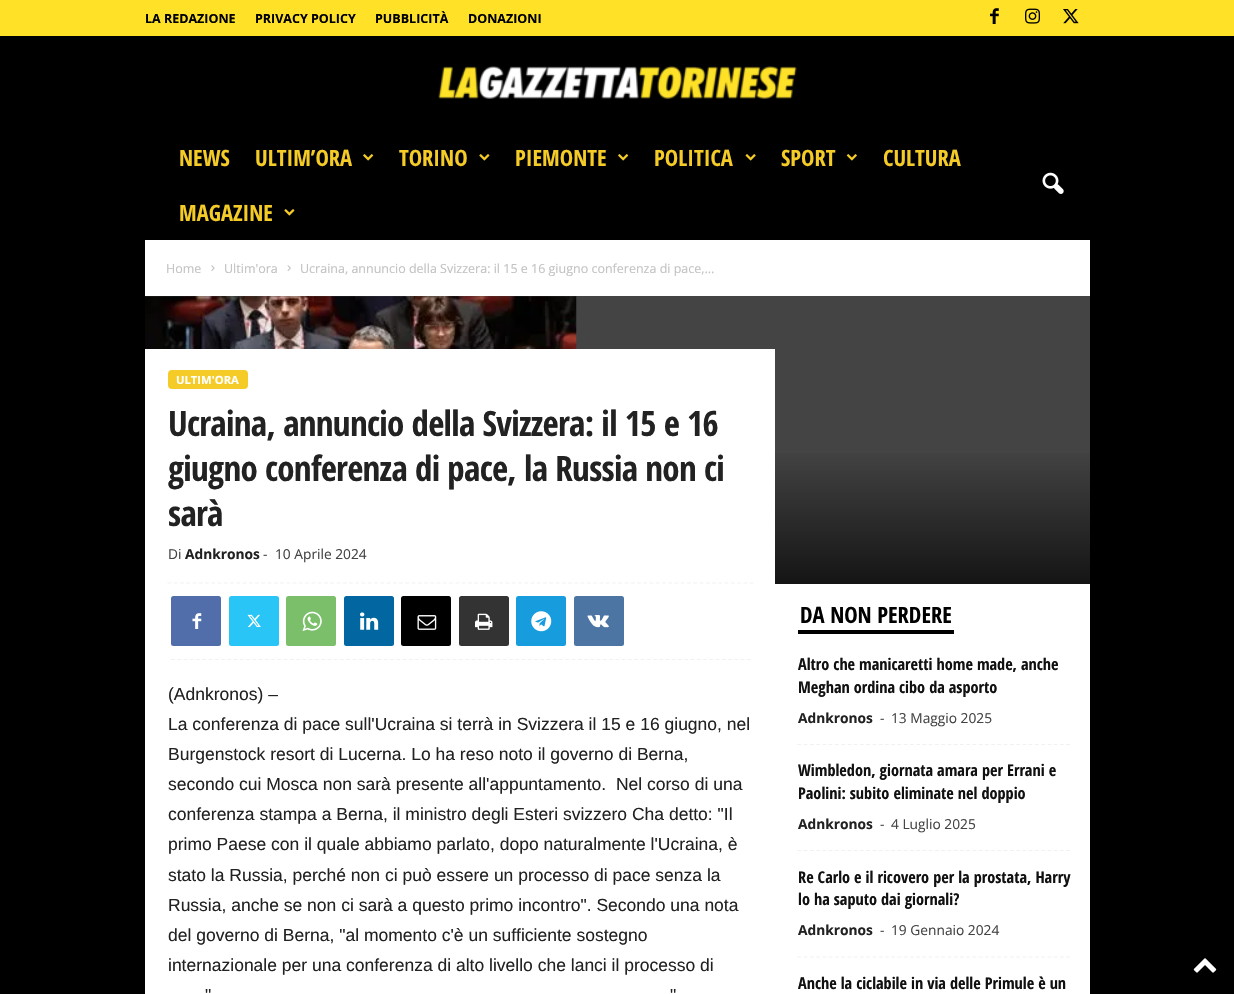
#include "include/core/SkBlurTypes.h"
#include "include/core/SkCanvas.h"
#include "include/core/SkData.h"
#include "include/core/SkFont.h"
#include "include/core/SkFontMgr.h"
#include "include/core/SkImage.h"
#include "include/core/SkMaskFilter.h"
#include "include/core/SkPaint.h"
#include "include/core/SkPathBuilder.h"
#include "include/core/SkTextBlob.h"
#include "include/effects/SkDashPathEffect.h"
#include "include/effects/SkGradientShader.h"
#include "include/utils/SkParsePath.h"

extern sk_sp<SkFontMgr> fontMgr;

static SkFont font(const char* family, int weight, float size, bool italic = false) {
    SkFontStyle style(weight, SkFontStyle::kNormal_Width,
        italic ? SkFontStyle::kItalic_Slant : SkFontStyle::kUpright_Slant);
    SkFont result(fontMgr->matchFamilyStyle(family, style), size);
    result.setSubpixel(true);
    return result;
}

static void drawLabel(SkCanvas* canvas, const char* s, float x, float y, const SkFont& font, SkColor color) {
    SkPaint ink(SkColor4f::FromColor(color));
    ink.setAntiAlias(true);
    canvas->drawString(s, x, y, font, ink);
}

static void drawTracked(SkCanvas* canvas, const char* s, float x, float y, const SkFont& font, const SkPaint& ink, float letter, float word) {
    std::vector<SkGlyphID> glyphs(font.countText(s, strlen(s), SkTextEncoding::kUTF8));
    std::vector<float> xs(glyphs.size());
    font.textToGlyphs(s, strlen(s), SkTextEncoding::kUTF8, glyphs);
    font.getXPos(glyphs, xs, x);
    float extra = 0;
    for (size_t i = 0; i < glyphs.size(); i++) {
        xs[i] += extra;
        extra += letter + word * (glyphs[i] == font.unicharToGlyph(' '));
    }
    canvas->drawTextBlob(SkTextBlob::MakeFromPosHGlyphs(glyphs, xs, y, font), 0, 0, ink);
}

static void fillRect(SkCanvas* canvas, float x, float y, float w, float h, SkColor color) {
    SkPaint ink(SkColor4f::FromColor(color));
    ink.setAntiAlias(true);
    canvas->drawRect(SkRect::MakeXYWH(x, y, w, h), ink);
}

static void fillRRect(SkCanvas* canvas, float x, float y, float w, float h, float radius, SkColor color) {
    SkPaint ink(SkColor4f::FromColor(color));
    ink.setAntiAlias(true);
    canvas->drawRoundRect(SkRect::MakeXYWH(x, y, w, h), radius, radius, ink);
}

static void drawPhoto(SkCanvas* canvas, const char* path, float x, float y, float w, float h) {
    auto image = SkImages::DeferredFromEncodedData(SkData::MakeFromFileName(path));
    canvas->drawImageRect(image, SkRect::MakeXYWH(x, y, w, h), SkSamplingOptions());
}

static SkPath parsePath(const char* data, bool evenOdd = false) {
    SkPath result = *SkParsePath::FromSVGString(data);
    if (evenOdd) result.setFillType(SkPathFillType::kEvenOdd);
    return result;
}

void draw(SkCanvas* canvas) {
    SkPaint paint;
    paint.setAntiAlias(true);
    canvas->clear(0xFF000000);
    fillRect(canvas, 0, 0, 1234, 36, 0xFFFFE228);
    SkFont font1 = font("Open Sans", 700, 12.5f);
    drawLabel(canvas, "LA REDAZIONE", 145, 23, font1, 0xFF000000);
    drawLabel(canvas, "PRIVACY POLICY", 255, 23, font1, 0xFF000000);
    drawLabel(canvas, "PUBBLICITÀ", 375, 23, font1, 0xFF000000);
    drawLabel(canvas, "DONAZIONI", 468, 23, font1, 0xFF000000);
    drawPhoto(canvas, "assets/img1.png", 990, 8, 9, 16);
    drawPhoto(canvas, "assets/img2.png", 1025, 8, 15, 16);
    drawPhoto(canvas, "assets/img3.png", 1063, 9, 16, 15);
    drawPhoto(canvas, "assets/img4.png", 438, 66, 359, 33);
    SkFont font2 = font("Open Sans Condensed", 700, 22.5f);
    drawLabel(canvas, "NEWS", 179, 166, font2, 0xFFF4CB27);
    drawLabel(canvas, "ULTIM’ORA", 255, 166, font2, 0xFFF4CB27);
    drawPhoto(canvas, "assets/img5.png", 363, 154, 11, 7);
    drawLabel(canvas, "TORINO", 399, 166, font2, 0xFFF4CB27);
    drawPhoto(canvas, "assets/img6.png", 479, 154, 11, 7);
    drawLabel(canvas, "PIEMONTE", 515, 166, font2, 0xFFF4CB27);
    drawPhoto(canvas, "assets/img5.png", 618, 154, 11, 7);
    drawLabel(canvas, "POLITICA", 654, 166, font2, 0xFFF4CB27);
    drawPhoto(canvas, "assets/img7.png", 745, 154, 11, 7);
    drawLabel(canvas, "SPORT", 781, 166, font2, 0xFFF4CB27);
    drawPhoto(canvas, "assets/img8.png", 846, 154, 11, 7);
    drawLabel(canvas, "CULTURA", 883, 166, font2, 0xFFF4CB27);
    drawLabel(canvas, "MAGAZINE", 179, 221, font2, 0xFFF4CB27);
    drawPhoto(canvas, "assets/img6.png", 284, 209, 11, 7);
    drawPhoto(canvas, "assets/img9.png", 1042, 172, 22, 22);
    fillRect(canvas, 145, 240, 945, 56, 0xFFFFFFFF);
    SkFont font3 = font("Open Sans", 400, 12.5f);
    drawLabel(canvas, "Home", 166, 273, font3, 0xFFC3C3C3);
    drawPhoto(canvas, "assets/img10.png", 211, 265, 4, 6);
    drawLabel(canvas, "Ultim'ora", 224, 273, font3, 0xFFC3C3C3);
    drawPhoto(canvas, "assets/img11.png", 287, 265, 4, 6);
    drawLabel(canvas, "Ucraina, annuncio della Svizzera: il 15 e 16 giugno conferenza di pace,...", 300, 273, font3, 0xFFC3C3C3);
    fillRect(canvas, 145, 296, 945, 288, 0xFF444444);
    drawPhoto(canvas, "assets/img12.png", 145, 296, 432, 53);
    fillRect(canvas, 145, 349, 630, 235, 0xFFFFFFFF);
    fillRRect(canvas, 168, 370, 80, 19, 4, 0xFFF4CB27);
    SkFont font4 = font("Open Sans", 700, 11.25f);
    drawLabel(canvas, "ULTIM'ORA", 176, 384, font4, 0xFFFFFFFF);
    SkFont font5 = font("Open Sans Condensed", 700, 35);
    paint.setColor(0xFF222222);
    drawTracked(canvas, "Ucraina, annuncio della Svizzera: il 15 e 16", 168, 436, font5, paint, -0.7f, 0);
    drawTracked(canvas, "giugno conferenza di pace, la Russia non ci", 168, 481, font5, paint, -0.7f, 0);
    drawTracked(canvas, "sarà", 168, 526, font5, paint, -0.7f, 0);
    paint.setStroke(true);
    paint.setStrokeWidth(1.2f);
    paint.setColor(0xFFF1F1F1);
    paint.setPathEffect(SkDashPathEffect::Make({{3.75f, 2.51f}}, 0));
    canvas->drawPath(parsePath("M167.5 583H754"), paint);
    paint.setPathEffect(nullptr);
    SkFont font6 = font("Open Sans", 400, 13.75f);
    drawLabel(canvas, "Di", 168, 559, font6, 0xFF444444);
    SkFont font7 = font("Open Sans", 700, 13.75f);
    drawLabel(canvas, "Adnkronos", 185, 559, font7, 0xFF222222);
    drawLabel(canvas, "-", 263, 559, font6, 0xFF444444);
    drawLabel(canvas, "10 Aprile 2024", 275, 559, font6, 0xFF444444);
    paint.setStroke(false);
    {
        const SkColor colors[] = {0x00000000, 0xB3000000};
        const float stops[] = {0, 1};
        const SkPoint ends[] = {{618, 446}, {618, 584}};
        paint.setShader(SkGradientShader::MakeLinear(ends, colors, stops, 2, SkTileMode::kClamp));
        paint.setAlpha(255);
    }
    canvas->drawRect(SkRect::MakeXYWH(775, 453, 315, 131), paint);
    fillRect(canvas, 145, 584, 945, 410, 0xFFFFFFFF);
    paint.setStroke(true);
    paint.setShader(nullptr);
    paint.setColor(0xFFF1F1F1);
    paint.setPathEffect(SkDashPathEffect::Make({{3.75f, 2.51f}}, 0));
    canvas->drawPath(parsePath("M171 659.5H751"), paint);
    paint.setPathEffect(nullptr);
    fillRRect(canvas, 171, 596, 50, 50, 2.5f, 0xFF516EAB);
    drawPhoto(canvas, "assets/img13.png", 192, 613, 10, 16);
    fillRRect(canvas, 229, 596, 50, 50, 2.5f, 0xFF29C5F6);
    drawPhoto(canvas, "assets/img14.png", 247, 614, 14, 13);
    fillRRect(canvas, 286, 596, 50, 50, 2.5f, 0xFF7BBF6A);
    drawPhoto(canvas, "assets/img15.png", 302, 611, 20, 20);
    fillRRect(canvas, 344, 596, 50, 50, 2.5f, 0xFF0266A0);
    drawPhoto(canvas, "assets/img16.png", 360, 612, 19, 18);
    fillRRect(canvas, 401, 596, 50, 50, 2.5f, 0xFF000000);
    drawPhoto(canvas, "assets/img17.png", 417, 615, 20, 15);
    fillRRect(canvas, 459, 596, 50, 50, 2.5f, 0xFF333333);
    drawPhoto(canvas, "assets/img18.png", 475, 613, 18, 17);
    fillRRect(canvas, 516, 596, 50, 50, 2.5f, 0xFF179CDE);
    drawPhoto(canvas, "assets/img19.png", 531, 611, 21, 21);
    fillRRect(canvas, 574, 596, 50, 50, 2.5f, 0xFF4C75A3);
    drawPhoto(canvas, "assets/img20.png", 587, 615, 22, 13);
    SkFont font8 = font("Liberation Sans", 400, 17.5f);
    drawLabel(canvas, "(Adnkronos) –", 168, 700, font8, 0xFF222222);
    drawLabel(canvas, "La conferenza di pace sull'Ucraina si terrà in Svizzera il 15 e 16 giugno, nel", 168, 730, font8, 0xFF222222);
    drawLabel(canvas, "Burgenstock resort di Lucerna. Lo ha reso noto il governo di Berna,", 168, 760, font8, 0xFF222222);
    drawLabel(canvas, "secondo cui Mosca non sarà presente all'appuntamento.  Nel corso di una", 168, 790, font8, 0xFF222222);
    drawLabel(canvas, "conferenza stampa a Berna, il ministro degli Esteri svizzero Cha detto: \"Il", 168, 820, font8, 0xFF222222);
    drawLabel(canvas, "primo Paese con il quale abbiamo parlato, dopo naturalmente l'Ucraina, è", 168, 850, font8, 0xFF222222);
    drawLabel(canvas, "stato la Russia, perché non ci può essere un processo di pace senza la", 168, 881, font8, 0xFF222222);
    drawLabel(canvas, "Russia, anche se non ci sarà a questo primo incontro\". Secondo una nota", 168, 911, font8, 0xFF222222);
    drawLabel(canvas, "del governo di Berna, \"al momento c'è un sufficiente sostegno", 168, 941, font8, 0xFF222222);
    drawLabel(canvas, "internazionale per una conferenza di alto livello che lanci il processo di", 168, 971, font8, 0xFF222222);
    drawLabel(canvas, "\"", 205, 1001, font8, 0xFF222222);
    drawLabel(canvas, "\"", 670, 1001, font8, 0xFF222222);
    fillRect(canvas, 798, 630, 156, 4, 0xFF000000);
    drawLabel(canvas, "DA NON PERDERE", 800, 623, font2, 0xFF000000);
    paint.setPathEffect(SkDashPathEffect::Make({{3.75f, 2.5f}}, 0));
    canvas->drawPath(parsePath("M797.5 744.5H1070"), paint);
    paint.setPathEffect(nullptr);
    SkFont font9 = font("Open Sans Condensed", 700, 16.25f);
    drawLabel(canvas, "Altro che manicaretti home made, anche", 798, 670, font9, 0xFF111111);
    drawLabel(canvas, "Meghan ordina cibo da asporto", 798, 693, font9, 0xFF111111);
    drawLabel(canvas, "Adnkronos", 798, 723, font7, 0xFF222222);
    drawLabel(canvas, "-", 880, 723, font6, 0xFF444444);
    drawLabel(canvas, "13 Maggio 2025", 891, 723, font6, 0xFF444444);
    paint.setPathEffect(SkDashPathEffect::Make({{3.75f, 2.5f}}, 0));
    canvas->drawPath(parsePath("M797.5 850.5H1070"), paint);
    paint.setPathEffect(nullptr);
    drawLabel(canvas, "Wimbledon, giornata amara per Errani e", 798, 776, font9, 0xFF111111);
    drawLabel(canvas, "Paolini: subito eliminate nel doppio", 798, 799, font9, 0xFF111111);
    drawLabel(canvas, "Adnkronos", 798, 829, font7, 0xFF222222);
    drawLabel(canvas, "-", 880, 829, font6, 0xFF444444);
    drawLabel(canvas, "4 Luglio 2025", 891, 829, font6, 0xFF444444);
    paint.setPathEffect(SkDashPathEffect::Make({{3.75f, 2.5f}}, 0));
    canvas->drawPath(parsePath("M797.5 957H1070"), paint);
    paint.setPathEffect(nullptr);
    drawLabel(canvas, "Re Carlo e il ricovero per la prostata, Harry", 798, 883, font9, 0xFF111111);
    drawLabel(canvas, "lo ha saputo dai giornali?", 798, 905, font9, 0xFF111111);
    drawLabel(canvas, "Adnkronos", 798, 935, font7, 0xFF222222);
    drawLabel(canvas, "-", 880, 935, font6, 0xFF444444);
    drawLabel(canvas, "19 Gennaio 2024", 891, 935, font6, 0xFF444444);
    drawLabel(canvas, "Anche la ciclabile in via delle Primule è un", 798, 989, font9, 0xFF111111);
    drawPhoto(canvas, "assets/img21.png", 1193, 958, 24, 15);
}
